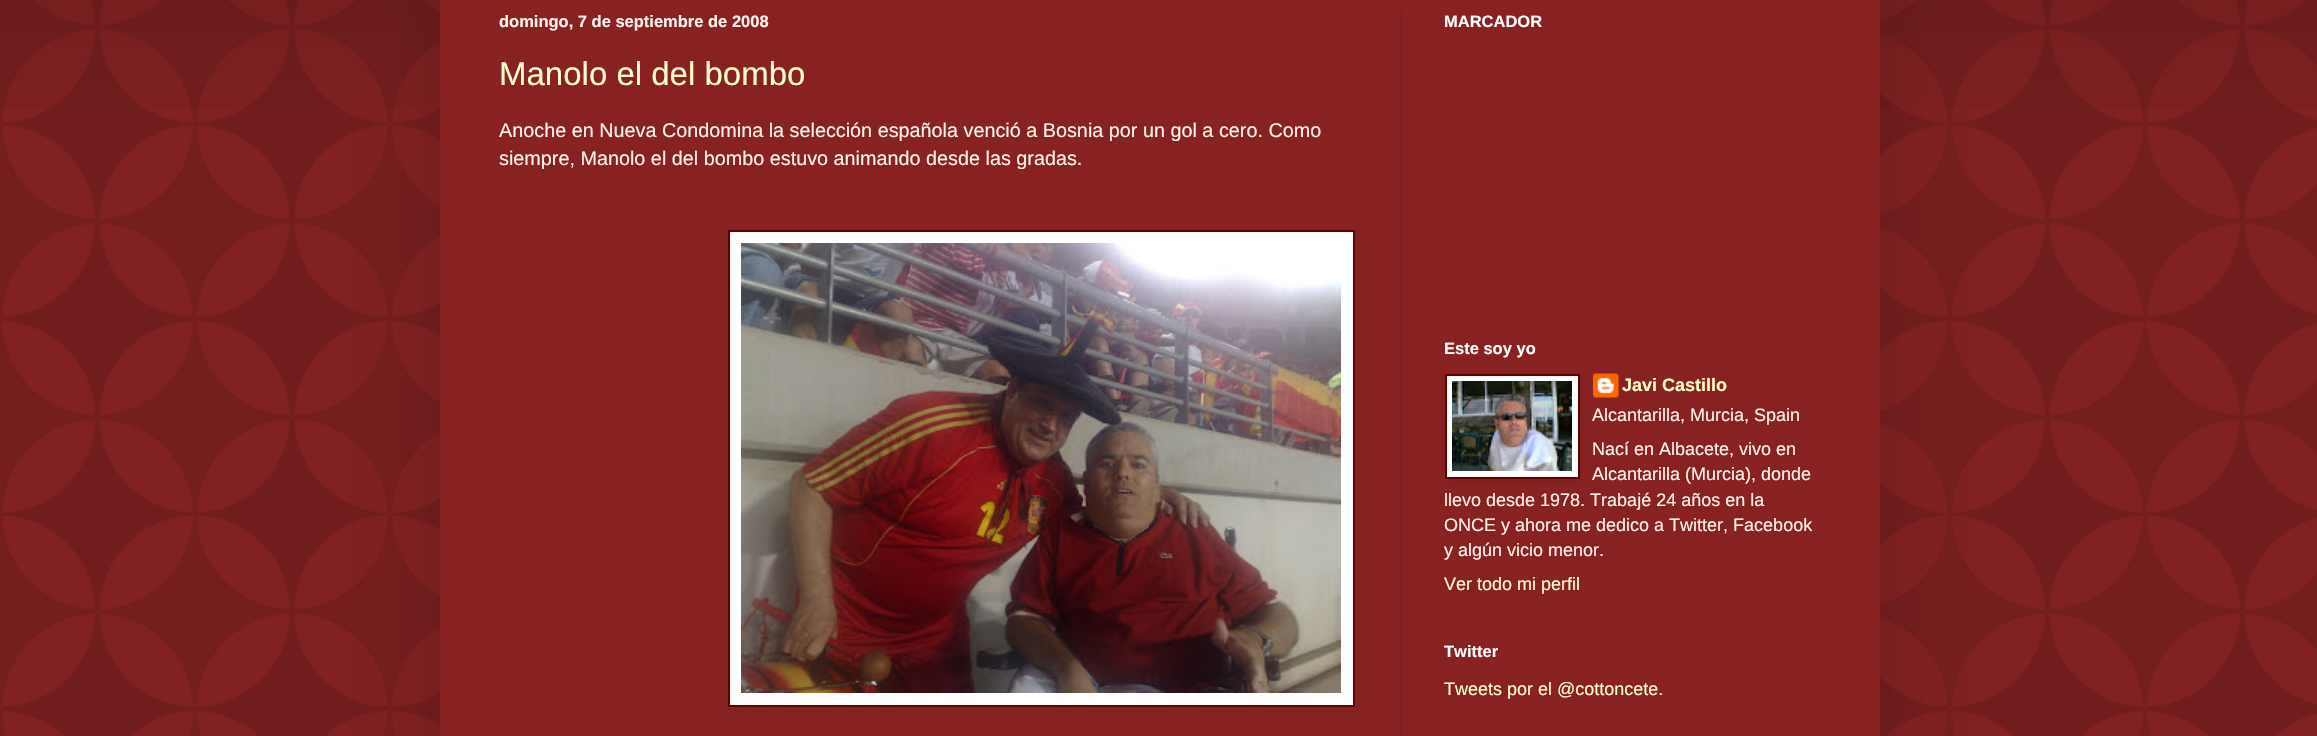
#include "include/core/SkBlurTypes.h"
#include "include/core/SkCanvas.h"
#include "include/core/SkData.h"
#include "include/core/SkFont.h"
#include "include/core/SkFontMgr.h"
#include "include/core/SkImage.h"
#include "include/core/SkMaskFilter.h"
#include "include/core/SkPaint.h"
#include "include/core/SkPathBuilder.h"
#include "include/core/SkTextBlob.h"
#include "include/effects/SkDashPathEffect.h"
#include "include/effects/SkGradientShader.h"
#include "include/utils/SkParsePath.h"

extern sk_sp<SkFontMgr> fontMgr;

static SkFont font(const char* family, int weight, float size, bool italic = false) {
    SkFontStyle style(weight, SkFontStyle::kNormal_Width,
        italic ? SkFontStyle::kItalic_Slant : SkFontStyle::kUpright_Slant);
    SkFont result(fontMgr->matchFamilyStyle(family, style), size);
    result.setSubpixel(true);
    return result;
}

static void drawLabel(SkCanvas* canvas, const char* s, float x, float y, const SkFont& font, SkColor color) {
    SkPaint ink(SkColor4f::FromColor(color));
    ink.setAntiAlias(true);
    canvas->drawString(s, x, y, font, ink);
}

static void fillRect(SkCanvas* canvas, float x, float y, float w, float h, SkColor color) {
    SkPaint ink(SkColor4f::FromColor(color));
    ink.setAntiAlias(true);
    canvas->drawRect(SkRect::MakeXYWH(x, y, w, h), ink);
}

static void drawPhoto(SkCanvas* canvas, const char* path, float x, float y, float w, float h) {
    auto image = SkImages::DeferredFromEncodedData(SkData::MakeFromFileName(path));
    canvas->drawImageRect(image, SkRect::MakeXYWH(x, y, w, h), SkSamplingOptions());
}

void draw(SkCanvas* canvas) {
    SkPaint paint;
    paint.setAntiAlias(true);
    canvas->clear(0xFF882222);
    drawPhoto(canvas, "assets/img1.png", 0, 0, 2317, 736);
    drawPhoto(canvas, "assets/img2.png", 0, 0, 2317, 108);
    paint.setColor(0x26000000);
    paint.setMaskFilter(SkMaskFilter::MakeBlur(kNormal_SkBlurStyle, 30));
    canvas->drawRect(SkRect::MakeXYWH(440, -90, 1440, 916), paint);
    paint.setMaskFilter(nullptr);
    fillRect(canvas, 440, 0, 1440, 736, 0xFF882222);
    fillRect(canvas, 1400, 12, 2, 724, 0xFF772222);
    SkFont font1 = font("Liberation Sans", 700, 16.5f);
    drawLabel(canvas, "domingo, 7 de septiembre de 2008", 499, 27, font1, 0xFFFFF5EE);
    SkFont font2 = font("Liberation Sans", 400, 33);
    drawLabel(canvas, "Manolo el del bombo", 499, 85, font2, 0xFFFFFFCC);
    SkFont font3 = font("Liberation Sans", 400, 19.8f);
    drawLabel(canvas, "Anoche en Nueva Condomina la selección española venció a Bosnia por un gol a cero. Como", 499, 137, font3, 0xFFFFF5EE);
    drawLabel(canvas, "siempre, Manolo el del bombo estuvo animando desde las gradas.", 499, 165, font3, 0xFFFFF5EE);
    paint.setColor(0x1A000000);
    paint.setMaskFilter(SkMaskFilter::MakeBlur(kNormal_SkBlurStyle, 4));
    canvas->drawRect(SkRect::MakeXYWH(729, 231, 627, 477), paint);
    paint.setMaskFilter(nullptr);
    paint.setColor(0xFFFFFFFF);
    canvas->drawRect(SkRect::MakeXYWH(729, 231, 625, 475), paint);
    paint.setStroke(true);
    paint.setStrokeWidth(2);
    paint.setColor(0xFF660000);
    canvas->drawRect(SkRect::MakeXYWH(729, 231, 625, 475), paint);
    drawPhoto(canvas, "assets/img3.png", 741, 243, 600, 450);
    drawLabel(canvas, "MARCADOR", 1444, 27, font1, 0xFFFFFFFF);
    drawLabel(canvas, "Este soy yo", 1444, 354, font1, 0xFFFFFFFF);
    drawPhoto(canvas, "assets/img5.png", 1593, 373, 26, 25);
    paint.setStroke(false);
    paint.setColor(0x1A000000);
    paint.setMaskFilter(SkMaskFilter::MakeBlur(kNormal_SkBlurStyle, 4));
    canvas->drawRect(SkRect::MakeXYWH(1446, 375, 135, 105), paint);
    paint.setMaskFilter(nullptr);
    paint.setColor(0xFFFFFFFF);
    canvas->drawRect(SkRect::MakeXYWH(1446, 375, 133, 103), paint);
    paint.setStroke(true);
    paint.setColor(0xFF660000);
    canvas->drawRect(SkRect::MakeXYWH(1446, 375, 133, 103), paint);
    drawPhoto(canvas, "assets/img4.png", 1452, 381, 120, 90);
    SkFont font4 = font("Liberation Sans", 700, 18);
    drawLabel(canvas, "Javi Castillo", 1622, 391, font4, 0xFFFFFFCC);
    SkFont font5 = font("Liberation Sans", 400, 18);
    drawLabel(canvas, "Alcantarilla, Murcia, Spain", 1592, 421, font5, 0xFFFFF5EE);
    drawLabel(canvas, "Nací en Albacete, vivo en", 1592, 455, font5, 0xFFFFF5EE);
    drawLabel(canvas, "Alcantarilla (Murcia), donde", 1592, 480, font5, 0xFFFFF5EE);
    drawLabel(canvas, "llevo desde 1978. Trabajé 24 años en la", 1444, 506, font5, 0xFFFFF5EE);
    drawLabel(canvas, "ONCE y ahora me dedico a Twitter, Facebook", 1444, 531, font5, 0xFFFFF5EE);
    drawLabel(canvas, "y algún vicio menor.", 1444, 556, font5, 0xFFFFF5EE);
    drawLabel(canvas, "Ver todo mi perfil", 1444, 590, font5, 0xFFFFFFCC);
    drawLabel(canvas, "Twitter", 1444, 657, font1, 0xFFFFFFFF);
    drawLabel(canvas, "Tweets por el @cottoncete.", 1444, 695, font5, 0xFFFFFFCC);
}
